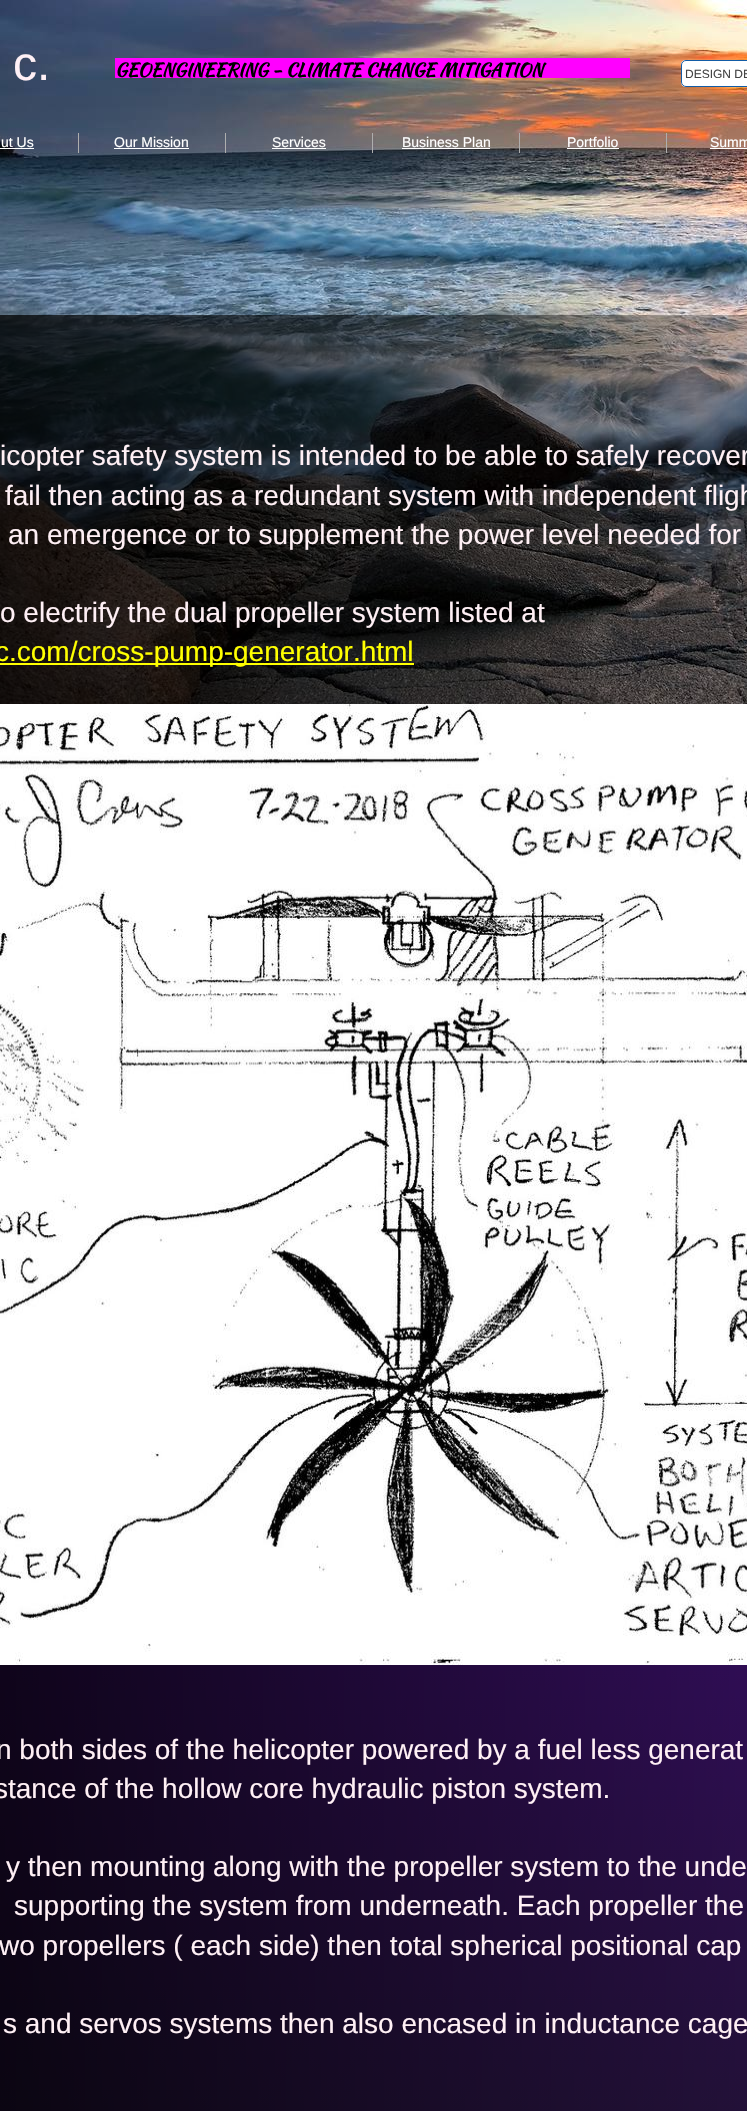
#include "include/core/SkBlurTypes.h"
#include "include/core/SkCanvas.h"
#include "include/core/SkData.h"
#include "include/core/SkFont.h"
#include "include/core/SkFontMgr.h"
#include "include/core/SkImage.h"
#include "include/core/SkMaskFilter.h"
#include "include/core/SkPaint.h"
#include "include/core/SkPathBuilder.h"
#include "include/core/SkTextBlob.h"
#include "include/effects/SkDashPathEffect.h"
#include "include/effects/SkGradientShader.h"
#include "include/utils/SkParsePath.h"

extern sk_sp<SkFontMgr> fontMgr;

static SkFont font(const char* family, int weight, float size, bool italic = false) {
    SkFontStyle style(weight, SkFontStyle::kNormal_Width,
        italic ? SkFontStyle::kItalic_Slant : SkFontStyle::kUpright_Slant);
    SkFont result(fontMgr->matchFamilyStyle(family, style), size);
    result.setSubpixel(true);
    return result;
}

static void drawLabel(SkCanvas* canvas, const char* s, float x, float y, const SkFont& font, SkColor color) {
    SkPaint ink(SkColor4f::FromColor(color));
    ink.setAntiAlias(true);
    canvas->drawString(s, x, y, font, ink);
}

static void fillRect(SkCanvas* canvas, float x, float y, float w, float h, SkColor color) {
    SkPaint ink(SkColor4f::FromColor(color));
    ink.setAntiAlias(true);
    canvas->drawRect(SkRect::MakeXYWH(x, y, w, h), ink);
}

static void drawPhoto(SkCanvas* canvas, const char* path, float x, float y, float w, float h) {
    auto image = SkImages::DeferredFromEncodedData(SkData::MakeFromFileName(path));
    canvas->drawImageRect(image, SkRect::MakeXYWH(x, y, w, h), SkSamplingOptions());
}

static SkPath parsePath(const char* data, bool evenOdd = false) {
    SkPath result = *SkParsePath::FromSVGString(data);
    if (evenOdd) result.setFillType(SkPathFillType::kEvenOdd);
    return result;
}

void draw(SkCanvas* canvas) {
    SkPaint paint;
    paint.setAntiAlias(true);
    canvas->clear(0xFFFFFFFF);
    drawPhoto(canvas, "assets/img1.png", 0, 0, 747, 2111);
    SkFont font1 = font("Liberation Sans", 400, 48);
    drawLabel(canvas, "c.", 13, 80, font1, 0xFFFFF0F5);
    fillRect(canvas, 115, 58, 515, 20, 0xFFFF00FF);
    SkFont font2 = font("Kaushan Script", 700, 18);
    drawLabel(canvas, "GEOENGINEERING - CLIMATE CHANGE MITIGATION", 115, 76, font2, 0xFF000000);
    paint.setColor(0xFFFFFFFF);
    canvas->drawPath(parsePath("M686 60H747V87H686C683 87 681 85 681 82V65C681 62 683 60 686 60Z"), paint);
    paint.setStroke(true);
    paint.setStrokeWidth(1);
    paint.setColor(0xFF125CA6);
    canvas->drawRoundRect(SkRect::MakeXYWH(681.5f, 60.5f, 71, 26), 4.5f, 4.5f, paint);
    SkFont font3 = font("Liberation Sans", 400, 12);
    drawLabel(canvas, "DESIGN DE", 685, 78, font3, 0xFF444444);
    fillRect(canvas, 78, 133, 1, 20, 0xFFAEAEAE);
    SkFont font4 = font("Liberation Sans", 400, 14);
    drawLabel(canvas, "ut Us", 1, 147, font4, 0xFFFFFFFF);
    fillRect(canvas, 0, 148, 34, 1, 0xFFFFFFFF);
    fillRect(canvas, 225, 133, 1, 20, 0xFFAEAEAE);
    drawLabel(canvas, "Our Mission", 114, 147, font4, 0xFFFFFFFF);
    fillRect(canvas, 114, 148, 75, 1, 0xFFFFFFFF);
    fillRect(canvas, 372, 133, 1, 20, 0xFFAEAEAE);
    drawLabel(canvas, "Services", 272, 147, font4, 0xFFFFFFFF);
    fillRect(canvas, 272, 148, 54, 1, 0xFFFFFFFF);
    fillRect(canvas, 519, 133, 1, 20, 0xFFAEAEAE);
    drawLabel(canvas, "Business Plan", 402, 147, font4, 0xFFFFFFFF);
    fillRect(canvas, 402, 148, 88, 1, 0xFFFFFFFF);
    fillRect(canvas, 666, 133, 1, 20, 0xFFAEAEAE);
    drawLabel(canvas, "Portfolio", 567, 147, font4, 0xFFFFFFFF);
    fillRect(canvas, 567, 148, 52, 1, 0xFFFFFFFF);
    drawLabel(canvas, "Summ", 710, 147, font4, 0xFFFFFFFF);
    fillRect(canvas, 710, 148, 37, 1, 0xFFFFFFFF);
    SkFont font5 = font("Liberation Sans", 400, 28);
    drawLabel(canvas, "icopter safety system is intended to be able to safely recover", 0, 465, font5, 0xFFFFF0F5);
    drawLabel(canvas, "fail then acting as a redundant system with independent fligh", 5, 505, font5, 0xFFFFF0F5);
    drawLabel(canvas, "an emergence or to supplement the power level needed for", 8, 544, font5, 0xFFFFF0F5);
    drawLabel(canvas, "o electrify the dual propeller system listed at", 0, 622, font5, 0xFFFFF0F5);
    fillRect(canvas, 0, 663, 414, 2, 0xFFFFFF00);
    drawLabel(canvas, "c.com/cross-pump-generator.html", -5, 661, font5, 0xFFFFFF00);
    drawLabel(canvas, "n both sides of the helicopter powered by a fuel less generat", -4, 1759, font5, 0xFFFFF0F5);
    drawLabel(canvas, "stance of the hollow core hydraulic piston system.", -6, 1798, font5, 0xFFFFF0F5);
    drawLabel(canvas, "y then mounting along with the propeller system to the unde", 6, 1876, font5, 0xFFFFF0F5);
    drawLabel(canvas, "supporting the system from underneath. Each propeller the", 14, 1915, font5, 0xFFFFF0F5);
    drawLabel(canvas, "wo propellers ( each side) then total spherical positional cap", -1, 1955, font5, 0xFFFFF0F5);
    drawLabel(canvas, "s and servos systems then also encased in inductance cage", 3, 2033, font5, 0xFFFFF0F5);
    drawPhoto(canvas, "assets/img2.png", 0, 704, 747, 961);
}
